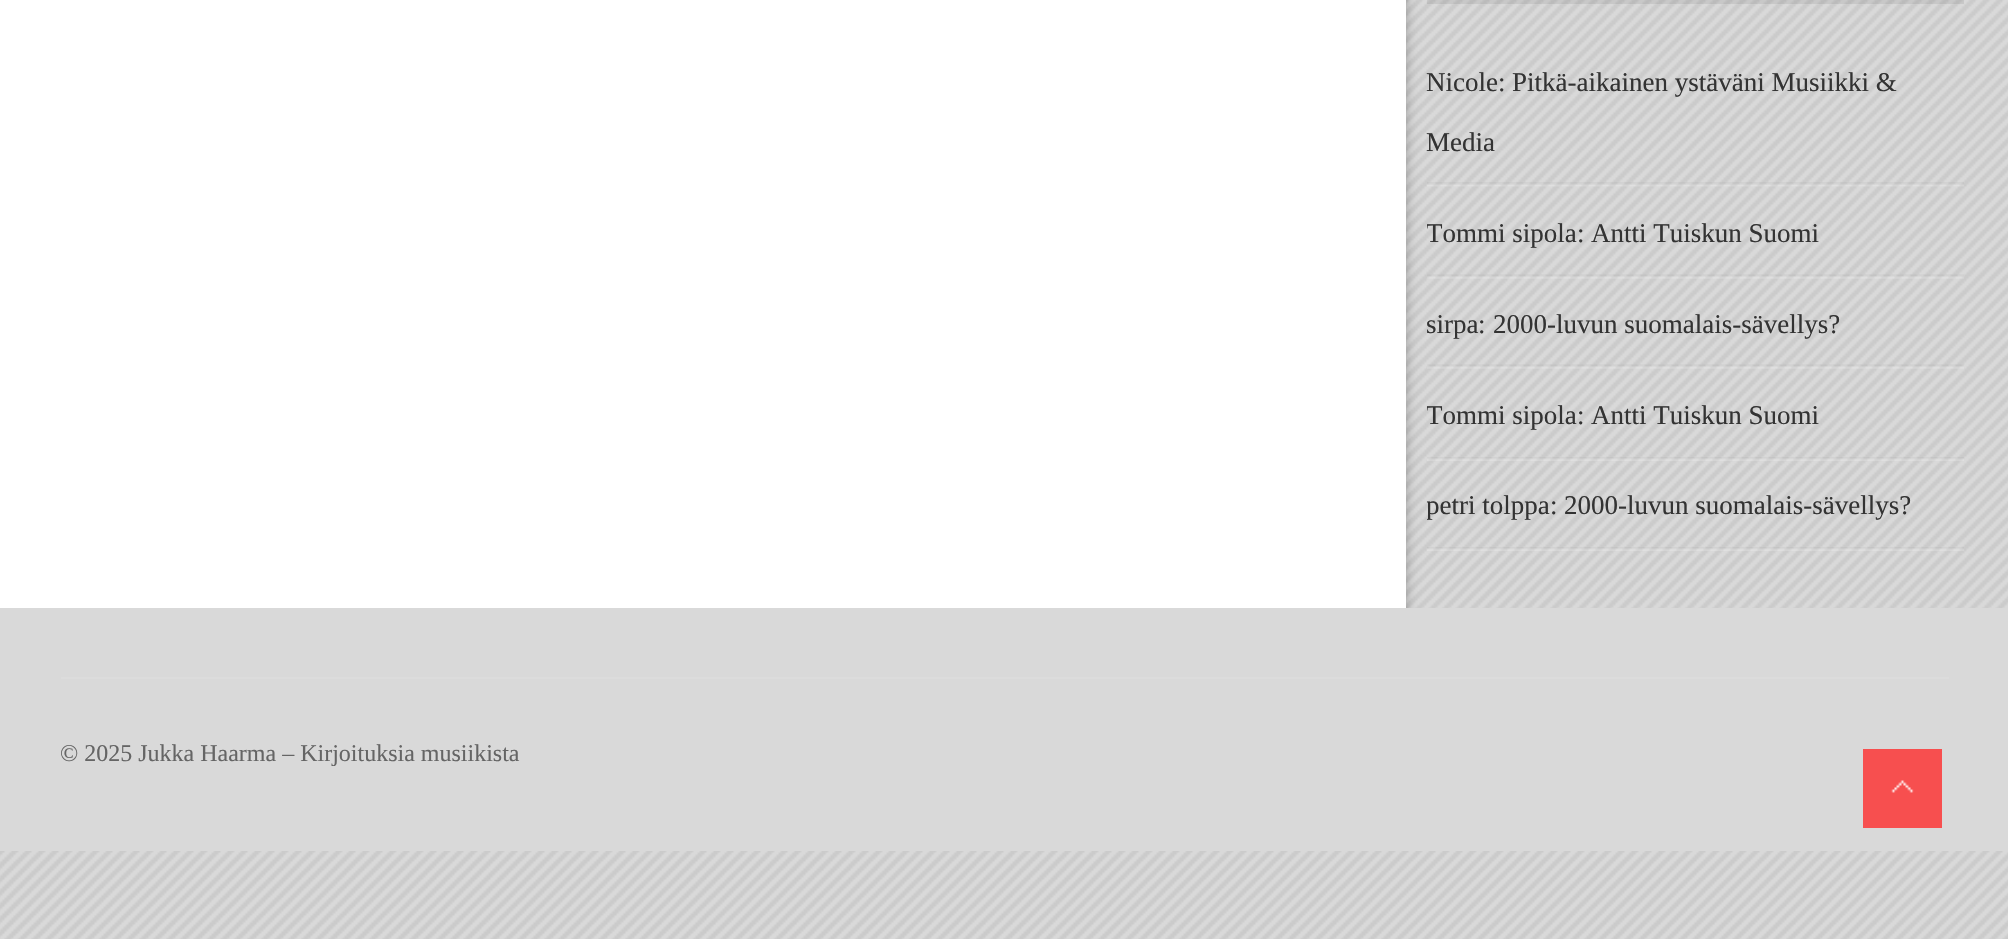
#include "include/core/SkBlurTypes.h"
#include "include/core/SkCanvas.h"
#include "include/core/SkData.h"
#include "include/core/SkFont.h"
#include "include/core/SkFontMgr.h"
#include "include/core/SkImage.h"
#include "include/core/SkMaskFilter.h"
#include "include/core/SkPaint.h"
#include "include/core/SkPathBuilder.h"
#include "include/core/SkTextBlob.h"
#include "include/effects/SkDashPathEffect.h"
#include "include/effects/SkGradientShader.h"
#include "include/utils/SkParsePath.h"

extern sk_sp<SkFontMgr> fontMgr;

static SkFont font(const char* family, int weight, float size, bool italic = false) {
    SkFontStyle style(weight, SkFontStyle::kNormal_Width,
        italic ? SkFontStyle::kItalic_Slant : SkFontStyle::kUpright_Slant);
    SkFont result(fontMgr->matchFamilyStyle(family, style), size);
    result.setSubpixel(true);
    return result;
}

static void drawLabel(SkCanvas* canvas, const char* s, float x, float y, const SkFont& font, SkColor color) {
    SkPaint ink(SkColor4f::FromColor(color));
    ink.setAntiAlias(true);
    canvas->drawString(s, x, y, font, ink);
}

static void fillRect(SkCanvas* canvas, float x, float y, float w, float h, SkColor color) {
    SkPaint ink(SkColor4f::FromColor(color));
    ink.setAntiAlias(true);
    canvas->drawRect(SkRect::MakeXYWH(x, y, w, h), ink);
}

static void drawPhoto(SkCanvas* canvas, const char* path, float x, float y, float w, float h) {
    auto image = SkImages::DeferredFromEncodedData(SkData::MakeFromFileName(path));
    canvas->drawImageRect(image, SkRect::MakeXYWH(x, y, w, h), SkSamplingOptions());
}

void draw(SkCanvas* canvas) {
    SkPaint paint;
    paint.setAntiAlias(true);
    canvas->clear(0xFFD9D9D9);
    drawPhoto(canvas, "assets/img1.png", 0, 0, 2008, 939);
    paint.setColor(0x4D000000);
    paint.setMaskFilter(SkMaskFilter::MakeBlur(kNormal_SkBlurStyle, 5.5f));
    canvas->drawRect(SkRect::MakeXYWH(0, -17, 1406, 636), paint);
    paint.setMaskFilter(nullptr);
    fillRect(canvas, 0, 0, 1406, 608, 0xFFFFFFFF);
    fillRect(canvas, 1427, 0, 537, 4, 0x0A000000);
    fillRect(canvas, 1427, 0, 537, 4, 0x0A000000);
    drawPhoto(canvas, "assets/img2.png", 1427, 182, 537, 5);
    SkFont font1 = font("Liberation Serif", 400, 27);
    drawLabel(canvas, "Nicole:", 1426, 91, font1, 0xFF333333);
    drawLabel(canvas, "Pitkä-aikainen ystäväni Musiikki &", 1512, 91, font1, 0xFF333333);
    drawLabel(canvas, "Media", 1426, 151, font1, 0xFF333333);
    drawPhoto(canvas, "assets/img3.png", 1427, 274, 537, 5);
    canvas->save();
    canvas->clipRect(SkRect::MakeXYWH(1427, 38, 537, 513));
    drawLabel(canvas, "Tommi sipola", 1426, 242, font1, 0xFF333333);
    canvas->restore();
    drawLabel(canvas, ":", 1577, 242, font1, 0xFF333333);
    drawLabel(canvas, "Antti Tuiskun Suomi", 1591, 242, font1, 0xFF333333);
    drawPhoto(canvas, "assets/img4.png", 1427, 364, 537, 5);
    canvas->save();
    canvas->clipRect(SkRect::MakeXYWH(1427, 38, 537, 513));
    drawLabel(canvas, "sirpa", 1426, 333, font1, 0xFF333333);
    canvas->restore();
    drawLabel(canvas, ":", 1478, 333, font1, 0xFF333333);
    drawLabel(canvas, "2000-luvun suomalais-sävellys?", 1493, 333, font1, 0xFF333333);
    drawPhoto(canvas, "assets/img5.png", 1427, 457, 537, 4);
    canvas->save();
    canvas->clipRect(SkRect::MakeXYWH(1427, 38, 537, 513));
    drawLabel(canvas, "Tommi sipola", 1426, 424, font1, 0xFF333333);
    canvas->restore();
    drawLabel(canvas, ":", 1577, 424, font1, 0xFF333333);
    drawLabel(canvas, "Antti Tuiskun Suomi", 1591, 424, font1, 0xFF333333);
    drawPhoto(canvas, "assets/img6.png", 1427, 547, 537, 4);
    canvas->save();
    canvas->clipRect(SkRect::MakeXYWH(1427, 38, 537, 513));
    drawLabel(canvas, "petri tolppa", 1426, 514, font1, 0xFF333333);
    canvas->restore();
    drawLabel(canvas, ":", 1550, 514, font1, 0xFF333333);
    drawLabel(canvas, "2000-luvun suomalais-sävellys?", 1564, 514, font1, 0xFF333333);
    fillRect(canvas, 0, 608, 2008, 243, 0xFFD9D9D9);
    fillRect(canvas, 61, 677, 1888, 2, 0xFFDCDCDC);
    SkFont font2 = font("Liberation Serif", 400, 24);
    drawLabel(canvas, "© 2025 Jukka Haarma – Kirjoituksia musiikista", 60, 761, font2, 0xFF656565);
    fillRect(canvas, 1863, 749, 79, 79, 0xFFF74F4F);
    drawPhoto(canvas, "assets/img7.png", 1891, 780, 23, 13);
}
